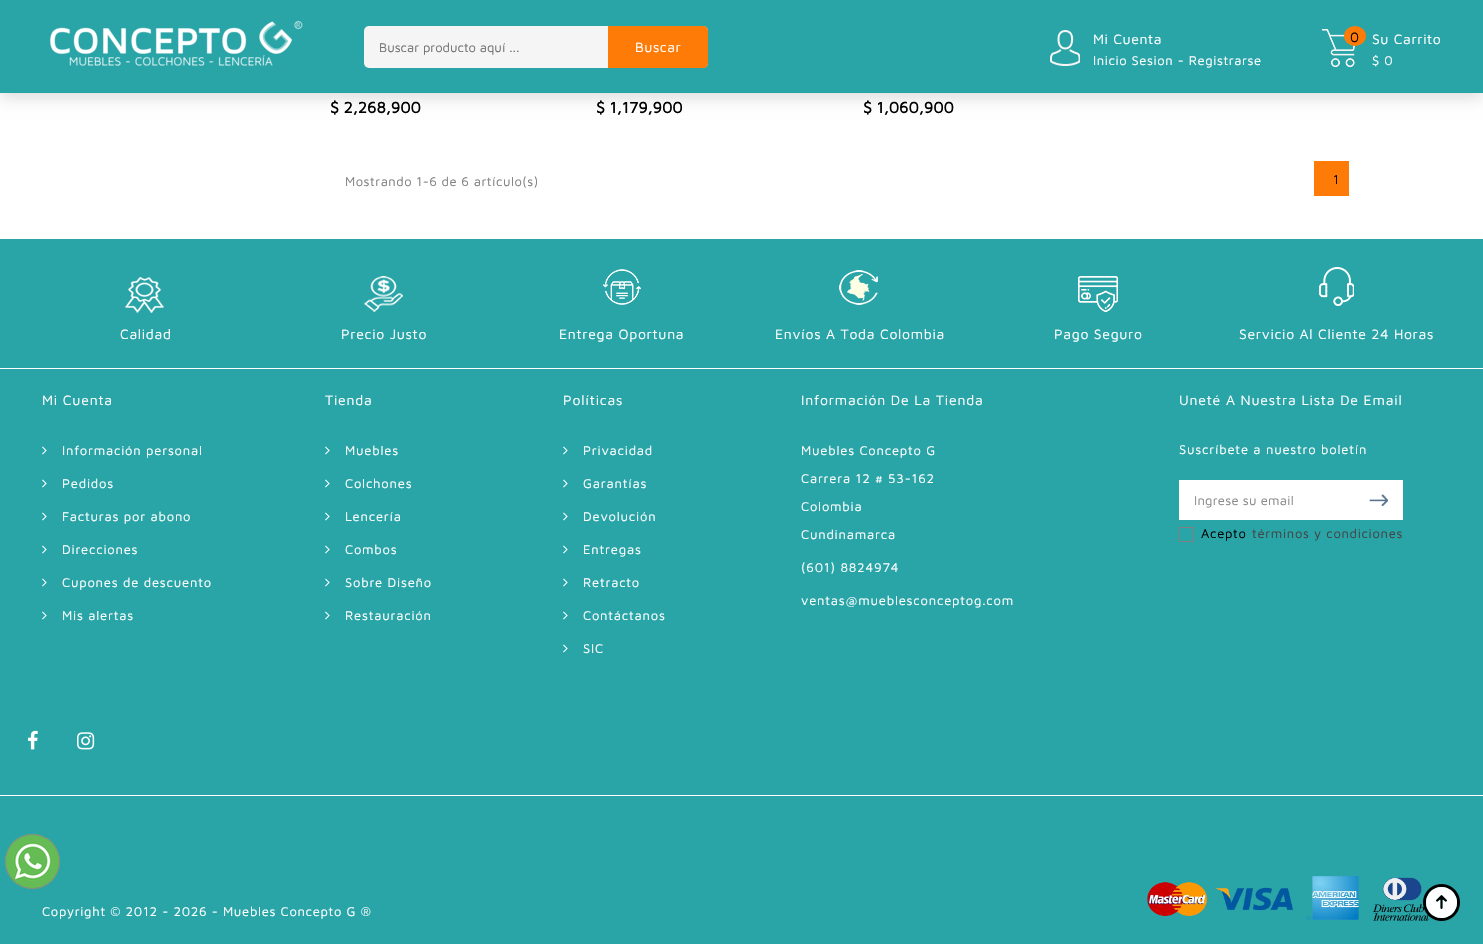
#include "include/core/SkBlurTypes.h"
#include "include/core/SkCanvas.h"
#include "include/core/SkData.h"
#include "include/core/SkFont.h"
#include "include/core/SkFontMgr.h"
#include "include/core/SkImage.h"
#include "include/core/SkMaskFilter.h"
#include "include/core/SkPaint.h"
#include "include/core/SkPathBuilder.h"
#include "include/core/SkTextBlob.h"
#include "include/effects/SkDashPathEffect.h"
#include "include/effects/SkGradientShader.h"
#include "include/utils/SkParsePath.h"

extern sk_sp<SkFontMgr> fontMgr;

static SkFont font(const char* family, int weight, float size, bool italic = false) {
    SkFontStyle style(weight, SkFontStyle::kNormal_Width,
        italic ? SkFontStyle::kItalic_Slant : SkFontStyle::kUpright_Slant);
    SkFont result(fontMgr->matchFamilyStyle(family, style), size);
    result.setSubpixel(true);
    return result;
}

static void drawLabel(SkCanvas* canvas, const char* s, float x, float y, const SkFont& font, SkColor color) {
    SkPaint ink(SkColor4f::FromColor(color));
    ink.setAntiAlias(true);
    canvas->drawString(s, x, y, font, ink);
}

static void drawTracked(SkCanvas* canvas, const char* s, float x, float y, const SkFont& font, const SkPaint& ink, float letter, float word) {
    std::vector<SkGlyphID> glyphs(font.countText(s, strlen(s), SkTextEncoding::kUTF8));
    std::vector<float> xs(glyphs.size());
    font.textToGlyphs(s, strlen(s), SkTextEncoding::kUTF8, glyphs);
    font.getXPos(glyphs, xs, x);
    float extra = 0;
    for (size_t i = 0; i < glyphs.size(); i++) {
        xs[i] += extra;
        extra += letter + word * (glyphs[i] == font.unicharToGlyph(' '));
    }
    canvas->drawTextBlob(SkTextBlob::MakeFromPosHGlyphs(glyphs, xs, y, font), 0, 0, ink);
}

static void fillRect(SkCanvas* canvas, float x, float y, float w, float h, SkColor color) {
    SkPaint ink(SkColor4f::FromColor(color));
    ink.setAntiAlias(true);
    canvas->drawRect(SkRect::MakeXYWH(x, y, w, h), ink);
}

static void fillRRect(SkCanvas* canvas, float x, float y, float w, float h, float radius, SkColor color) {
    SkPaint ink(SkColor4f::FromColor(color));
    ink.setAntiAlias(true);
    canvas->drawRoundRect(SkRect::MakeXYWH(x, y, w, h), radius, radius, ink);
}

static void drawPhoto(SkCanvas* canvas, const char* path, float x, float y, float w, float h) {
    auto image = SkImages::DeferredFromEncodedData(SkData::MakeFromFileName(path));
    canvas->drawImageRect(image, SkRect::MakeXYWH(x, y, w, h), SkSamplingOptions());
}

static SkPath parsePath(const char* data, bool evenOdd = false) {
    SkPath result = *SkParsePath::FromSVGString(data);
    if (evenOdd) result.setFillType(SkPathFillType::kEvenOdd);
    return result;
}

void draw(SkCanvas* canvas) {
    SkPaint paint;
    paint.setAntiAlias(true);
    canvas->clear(0xFFFFFFFF);
    paint.setColor(0x26000000);
    paint.setMaskFilter(SkMaskFilter::MakeBlur(kNormal_SkBlurStyle, 8));
    canvas->drawRect(SkRect::MakeXYWH(0, 4, 1483, 93), paint);
    paint.setMaskFilter(nullptr);
    fillRect(canvas, 0, 0, 1483, 93, 0xFF29A4A7);
    drawPhoto(canvas, "assets/img1.png", 49, 20, 254, 46);
    fillRRect(canvas, 364, 26, 344, 42, 5, 0xFFF5F5F5);
    SkFont font1 = font("Maven Pro", 400, 13);
    drawLabel(canvas, "Buscar producto aquí ...", 379, 52, font1, 0xFF717171);
    paint.setColor(0xFFFD7B06);
    canvas->drawPath(parsePath("M608 26H703C706 26 708 28 708 31V63C708 66 706 68 703 68H608Z"), paint);
    SkFont font2 = font("Maven Pro", 400, 14);
    paint.setColor(0xFFFFFFFF);
    drawTracked(canvas, "Buscar", 635, 52, font2, paint, 0.5f, 0);
    drawPhoto(canvas, "assets/img2.png", 1050, 30, 30, 36);
    drawTracked(canvas, "Mi Cuenta", 1093, 44, font2, paint, 0.6f, 0);
    drawTracked(canvas, "Inicio Sesion - Registrarse", 1093, 65, font1, paint, 0.6f, 0);
    drawPhoto(canvas, "assets/img3.png", 1322, 29, 34, 38);
    paint.setColor(0xFFFD7B06);
    canvas->drawOval(SkRect::MakeXYWH(1344, 26, 22, 20), paint);
    paint.setColor(0xFF000000);
    drawTracked(canvas, "0", 1350, 42, font2, paint, 0.6f, 0);
    paint.setColor(0xFFFFFFFF);
    drawTracked(canvas, "Su Carrito", 1372, 44, font2, paint, 0.6f, 0);
    drawTracked(canvas, "$ 0", 1372, 65, font1, paint, 0.6f, 0);
    SkFont font3 = font("Maven Pro", 700, 16);
    drawLabel(canvas, "$ 2,268,900", 330, 113, font3, 0xFF000000);
    drawLabel(canvas, "$ 1,179,900", 596, 113, font3, 0xFF000000);
    drawLabel(canvas, "$ 1,060,900", 863, 113, font3, 0xFF000000);
    paint.setColor(0xFF808080);
    drawTracked(canvas, "Mostrando 1-6 de 6 artículo(s)", 345, 186, font1, paint, 0.5f, 0);
    fillRect(canvas, 1314, 161, 35, 35, 0xFFFD7B06);
    paint.setColor(0xFF000000);
    drawTracked(canvas, "1", 1333, 184, font1, paint, 0.5f, 0);
    fillRect(canvas, 0, 239, 1483, 705, 0xFF29A4A7);
    fillRect(canvas, 0, 368, 1483, 1, 0xFFFFFFFF);
    drawPhoto(canvas, "assets/img4.png", 125, 277, 39, 36);
    paint.setColor(0xFFFFFFFF);
    drawTracked(canvas, "Calidad", 120, 339, font2, paint, 0.7f, 0);
    drawPhoto(canvas, "assets/img5.png", 364, 276, 39, 36);
    drawTracked(canvas, "Precio Justo", 341, 339, font2, paint, 0.7f, 0);
    drawPhoto(canvas, "assets/img6.png", 603, 269, 38, 36);
    drawTracked(canvas, "Entrega Oportuna", 559, 339, font2, paint, 0.7f, 0);
    drawPhoto(canvas, "assets/img7.png", 839, 270, 39, 35);
    drawTracked(canvas, "Envíos A Toda Colombia", 775, 339, font2, paint, 0.7f, 0);
    drawPhoto(canvas, "assets/img8.png", 1078, 276, 40, 36);
    drawTracked(canvas, "Pago Seguro", 1054, 339, font2, paint, 0.7f, 0);
    drawPhoto(canvas, "assets/img9.png", 1319, 267, 35, 39);
    drawTracked(canvas, "Servicio Al Cliente 24 Horas", 1239, 339, font2, paint, 0.7f, 0);
    drawTracked(canvas, "Mi Cuenta", 42, 405, font2, paint, 0.8f, 0);
    drawPhoto(canvas, "assets/img10.png", 42, 446, 5, 9);
    drawTracked(canvas, "Información personal", 62, 455, font1, paint, 0.8f, 0);
    drawPhoto(canvas, "assets/img10.png", 42, 479, 5, 9);
    drawTracked(canvas, "Pedidos", 62, 488, font1, paint, 0.8f, 0);
    drawPhoto(canvas, "assets/img10.png", 42, 512, 5, 9);
    drawTracked(canvas, "Facturas por abono", 62, 521, font1, paint, 0.8f, 0);
    drawPhoto(canvas, "assets/img10.png", 42, 545, 5, 9);
    drawTracked(canvas, "Direcciones", 62, 554, font1, paint, 0.8f, 0);
    drawPhoto(canvas, "assets/img10.png", 42, 578, 5, 9);
    drawTracked(canvas, "Cupones de descuento", 62, 587, font1, paint, 0.8f, 0);
    drawPhoto(canvas, "assets/img10.png", 42, 611, 5, 9);
    drawTracked(canvas, "Mis alertas", 62, 620, font1, paint, 0.8f, 0);
    drawTracked(canvas, "Tienda", 325, 405, font2, paint, 0.8f, 0);
    drawPhoto(canvas, "assets/img10.png", 325, 446, 5, 9);
    drawTracked(canvas, "Muebles", 345, 455, font1, paint, 0.8f, 0);
    drawPhoto(canvas, "assets/img10.png", 325, 479, 5, 9);
    drawTracked(canvas, "Colchones", 345, 488, font1, paint, 0.8f, 0);
    drawPhoto(canvas, "assets/img10.png", 325, 512, 5, 9);
    drawTracked(canvas, "Lencería", 345, 521, font1, paint, 0.8f, 0);
    drawPhoto(canvas, "assets/img10.png", 325, 545, 5, 9);
    drawTracked(canvas, "Combos", 345, 554, font1, paint, 0.8f, 0);
    drawPhoto(canvas, "assets/img10.png", 325, 578, 5, 9);
    drawTracked(canvas, "Sobre Diseño", 345, 587, font1, paint, 0.8f, 0);
    drawPhoto(canvas, "assets/img10.png", 325, 611, 5, 9);
    drawTracked(canvas, "Restauración", 345, 620, font1, paint, 0.8f, 0);
    drawTracked(canvas, "Políticas", 563, 405, font2, paint, 0.8f, 0);
    drawPhoto(canvas, "assets/img10.png", 563, 446, 5, 9);
    drawTracked(canvas, "Privacidad", 583, 455, font1, paint, 0.8f, 0);
    drawPhoto(canvas, "assets/img10.png", 563, 479, 5, 9);
    drawTracked(canvas, "Garantías", 583, 488, font1, paint, 0.8f, 0);
    drawPhoto(canvas, "assets/img10.png", 563, 512, 5, 9);
    drawTracked(canvas, "Devolución", 583, 521, font1, paint, 0.8f, 0);
    drawPhoto(canvas, "assets/img10.png", 563, 545, 5, 9);
    drawTracked(canvas, "Entregas", 583, 554, font1, paint, 0.8f, 0);
    drawPhoto(canvas, "assets/img10.png", 563, 578, 5, 9);
    drawTracked(canvas, "Retracto", 583, 587, font1, paint, 0.8f, 0);
    drawPhoto(canvas, "assets/img10.png", 563, 611, 5, 9);
    drawTracked(canvas, "Contáctanos", 583, 620, font1, paint, 0.8f, 0);
    drawPhoto(canvas, "assets/img10.png", 563, 644, 5, 9);
    drawTracked(canvas, "SIC", 583, 653, font1, paint, 0.8f, 0);
    drawTracked(canvas, "Información De La Tienda", 801, 405, font2, paint, 0.8f, 0);
    drawTracked(canvas, "Muebles Concepto G", 801, 455, font1, paint, 0.8f, 0);
    drawTracked(canvas, "Carrera 12 # 53-162", 801, 483, font1, paint, 0.8f, 0);
    drawTracked(canvas, "Colombia", 801, 511, font1, paint, 0.8f, 0);
    drawTracked(canvas, "Cundinamarca", 801, 539, font1, paint, 0.8f, 0);
    drawTracked(canvas, "(601) 8824974", 801, 572, font1, paint, 0.8f, 0);
    drawTracked(canvas, "ventas@mueblesconceptog.com", 801, 605, font1, paint, 0.8f, 0);
    drawTracked(canvas, "Uneté A Nuestra Lista De Email", 1179, 405, font2, paint, 0.8f, 0);
    drawTracked(canvas, "Suscríbete a nuestro boletín", 1179, 454, font1, paint, 0.8f, 0);
    fillRect(canvas, 1179, 480, 224, 40, 0xFFFFFFFF);
    paint.setColor(0xFF8A8A8A);
    drawTracked(canvas, "Ingrese su email", 1194, 505, font1, paint, 0.25f, 0);
    drawPhoto(canvas, "assets/img11.png", 1369, 494, 19, 12);
    paint.setStroke(true);
    paint.setStrokeWidth(1);
    paint.setColor(0xFF808080);
    canvas->drawRect(SkRect::MakeXYWH(1179.5f, 527.5f, 14, 14), paint);
    paint.setStroke(false);
    paint.setColor(0xFF000000);
    drawTracked(canvas, "Acepto", 1201, 538, font1, paint, 0.7f, 0);
    paint.setColor(0xFF444444);
    drawTracked(canvas, "términos y condiciones", 1252, 538, font1, paint, 0.7f, 0);
    drawPhoto(canvas, "assets/img12.png", 28, 730, 10, 20);
    drawPhoto(canvas, "assets/img13.png", 77, 732, 18, 18);
    paint.setColor(0xFF65BC54);
    canvas->drawCircle(32.5f, 861.5f, 27.5f, paint);
    drawPhoto(canvas, "assets/img14.png", 10, 839, 45, 45);
    paint.setStroke(true);
    paint.setColor(0xFF888888);
    canvas->drawCircle(32.5f, 861.5f, 27, paint);
    fillRect(canvas, 0, 795, 1483, 1, 0xFFFFFFFF);
    paint.setStroke(false);
    paint.setColor(0xFFFFFFFF);
    drawTracked(canvas, "Copyright © 2012 - 2026 - Muebles Concepto G ®", 42, 916, font1, paint, 0.7f, 0);
    drawPhoto(canvas, "assets/img15.png", 1147, 876, 285, 45);
    drawPhoto(canvas, "assets/img16.png", 1423, 884, 37, 37);
}
